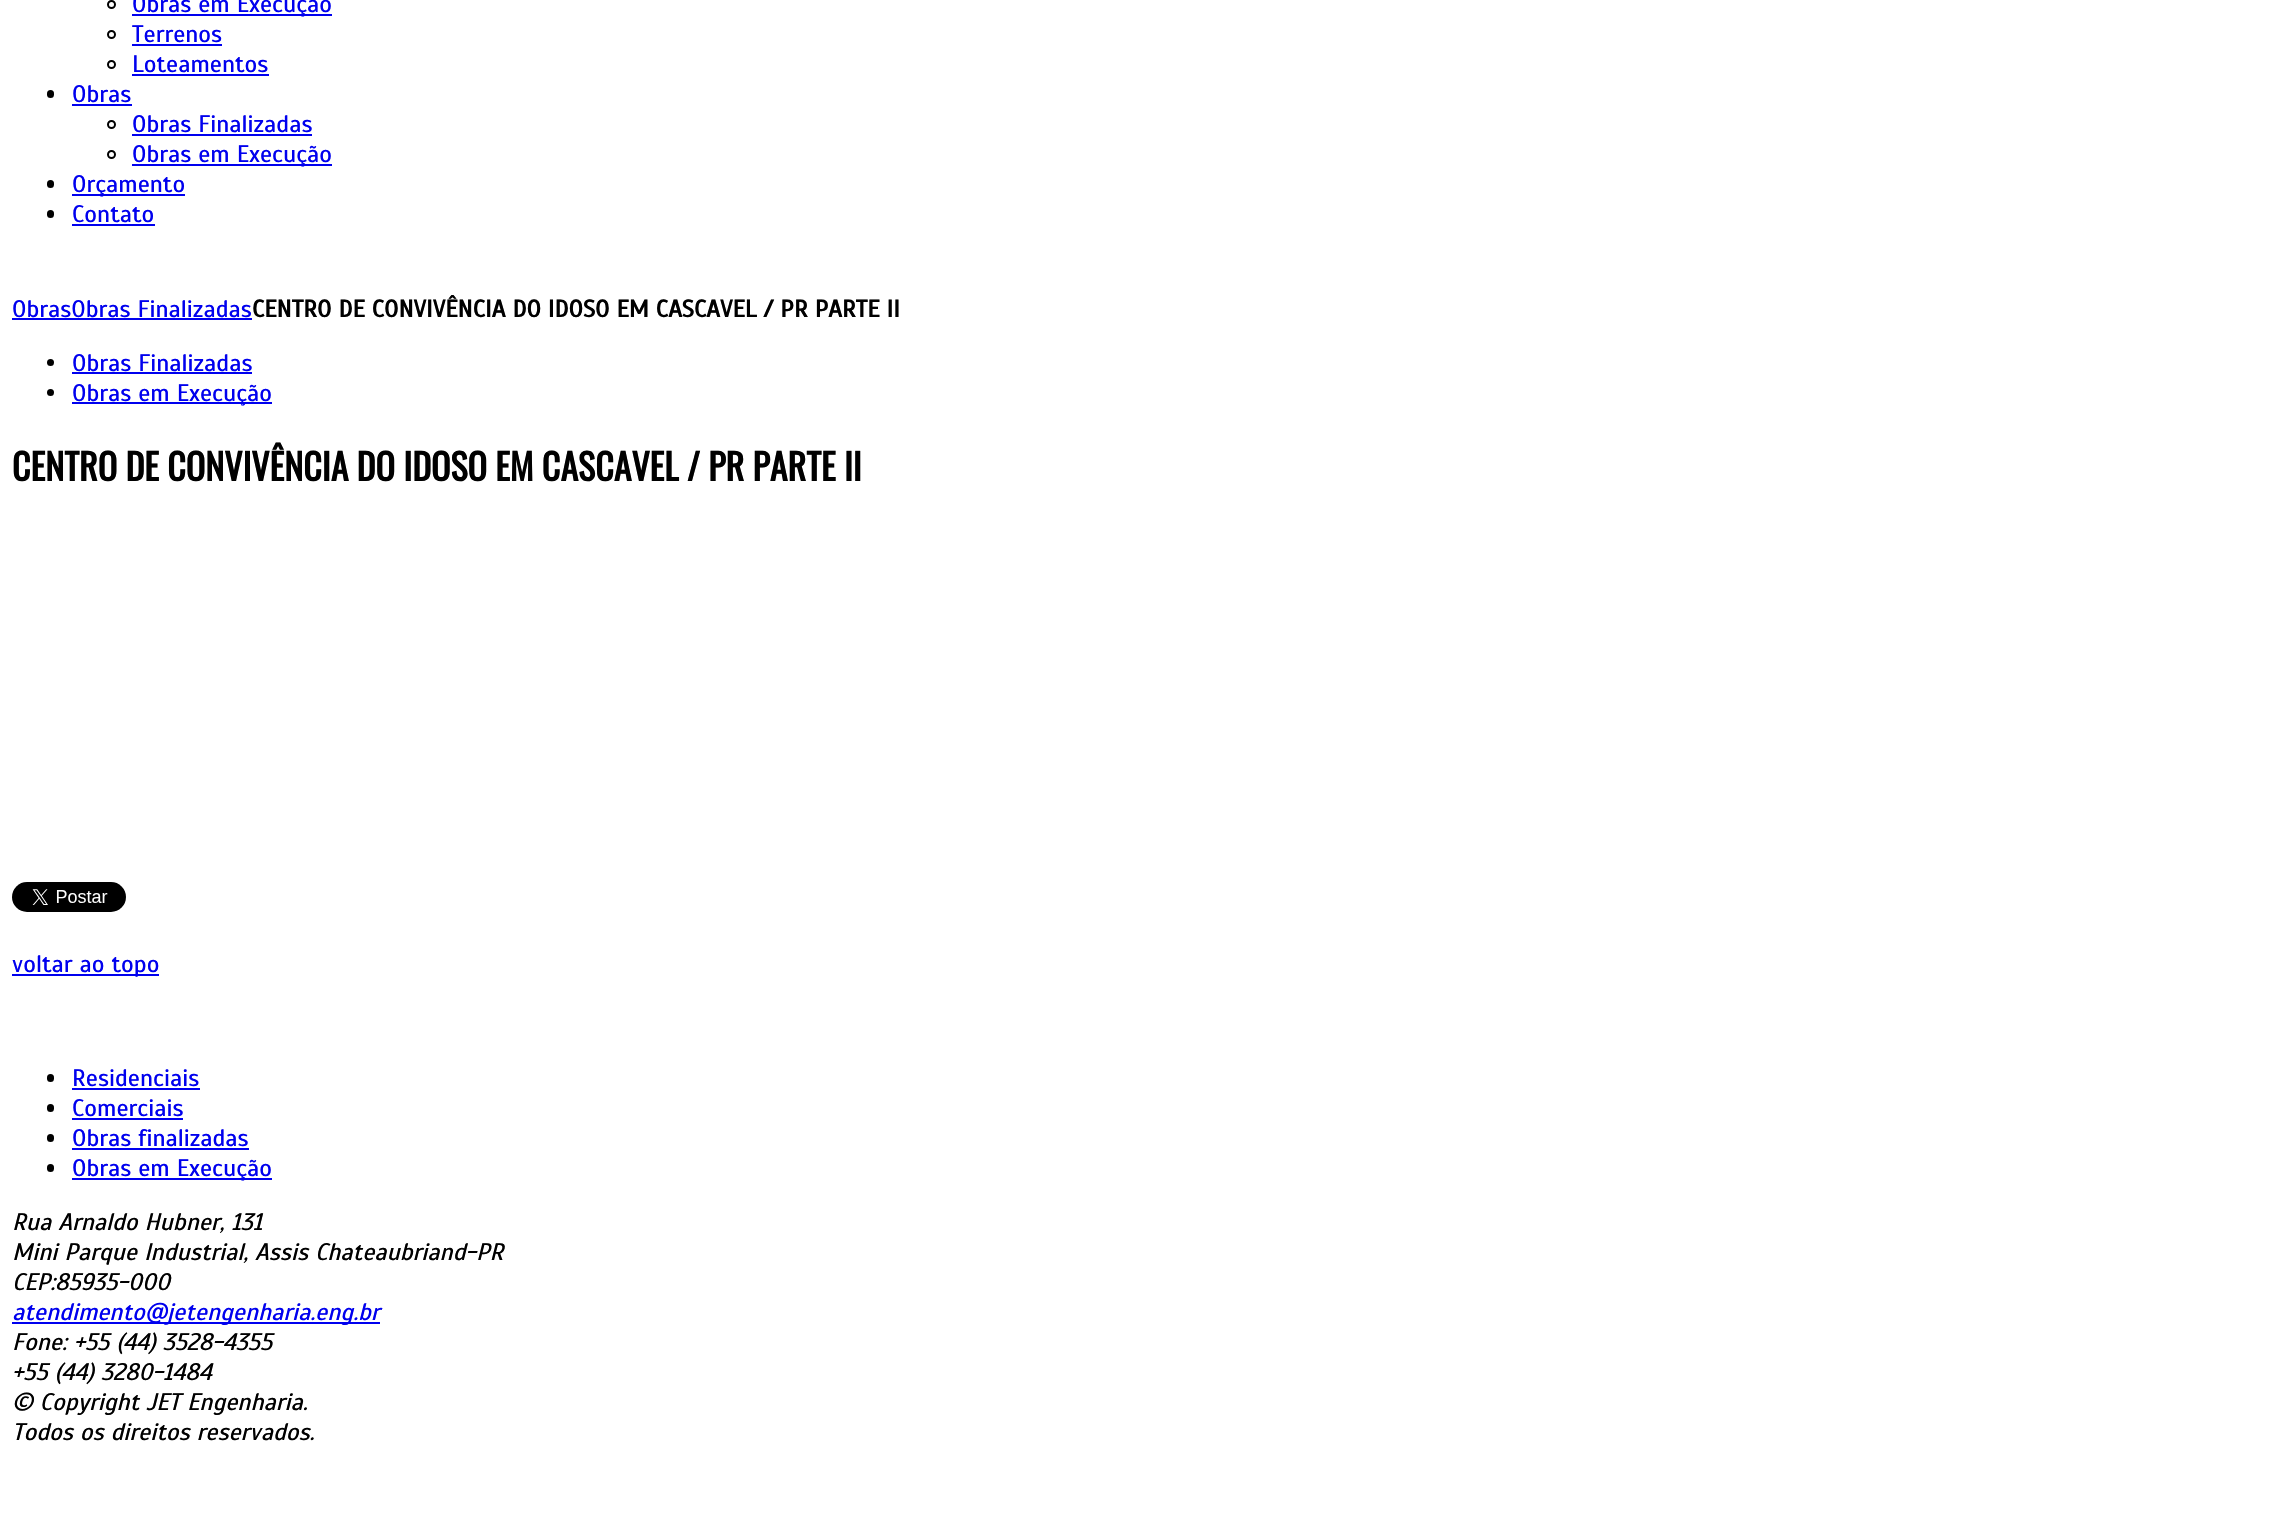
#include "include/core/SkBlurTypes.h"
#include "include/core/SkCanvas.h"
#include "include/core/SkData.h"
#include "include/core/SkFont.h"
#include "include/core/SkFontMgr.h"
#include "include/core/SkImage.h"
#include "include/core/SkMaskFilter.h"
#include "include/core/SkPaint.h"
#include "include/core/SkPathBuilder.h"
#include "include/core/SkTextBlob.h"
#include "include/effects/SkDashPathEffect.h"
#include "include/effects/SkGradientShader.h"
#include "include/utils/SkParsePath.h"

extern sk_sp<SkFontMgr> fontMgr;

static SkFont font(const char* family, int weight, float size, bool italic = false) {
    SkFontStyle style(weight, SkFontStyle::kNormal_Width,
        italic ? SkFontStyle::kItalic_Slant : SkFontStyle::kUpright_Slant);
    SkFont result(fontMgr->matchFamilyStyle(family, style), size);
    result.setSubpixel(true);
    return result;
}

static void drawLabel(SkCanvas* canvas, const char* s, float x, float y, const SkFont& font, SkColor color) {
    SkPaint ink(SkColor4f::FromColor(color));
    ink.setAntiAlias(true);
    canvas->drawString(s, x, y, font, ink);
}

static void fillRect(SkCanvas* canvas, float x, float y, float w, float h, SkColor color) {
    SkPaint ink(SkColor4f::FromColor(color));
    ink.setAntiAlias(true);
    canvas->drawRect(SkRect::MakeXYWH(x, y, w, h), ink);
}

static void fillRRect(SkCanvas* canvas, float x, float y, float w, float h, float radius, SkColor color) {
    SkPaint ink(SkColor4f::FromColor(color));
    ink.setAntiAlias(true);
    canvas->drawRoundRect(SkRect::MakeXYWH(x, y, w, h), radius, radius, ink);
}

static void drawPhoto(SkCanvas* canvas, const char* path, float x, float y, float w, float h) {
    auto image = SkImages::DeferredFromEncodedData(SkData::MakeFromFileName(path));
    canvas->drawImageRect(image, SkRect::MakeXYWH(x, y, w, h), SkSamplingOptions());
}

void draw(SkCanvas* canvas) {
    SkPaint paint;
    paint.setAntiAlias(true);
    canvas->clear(0xFFFFFFFF);
    paint.setStroke(true);
    paint.setStrokeWidth(2);
    paint.setColor(0xFF000000);
    canvas->drawCircle(111.5f, 4.5f, 3.5f, paint);
    fillRect(canvas, 132, 14, 200, 2, 0xFF0000EE);
    SkFont font1 = font("Scada", 400, 24);
    drawLabel(canvas, "Obras em Execução", 132, 12, font1, 0xFF0000EE);
    canvas->drawCircle(111.5f, 34.5f, 3.5f, paint);
    drawLabel(canvas, "Terrenos", 132, 42, font1, 0xFF0000EE);
    fillRect(canvas, 132, 44, 90, 2, 0xFF0000EE);
    canvas->drawCircle(111.5f, 64.5f, 3.5f, paint);
    drawLabel(canvas, "Loteamentos", 132, 72, font1, 0xFF0000EE);
    fillRect(canvas, 132, 74, 137, 2, 0xFF0000EE);
    fillRRect(canvas, 47, 90, 7, 8, 3.5f, 0xFF000000);
    drawLabel(canvas, "Obras", 72, 102, font1, 0xFF0000EE);
    fillRect(canvas, 72, 104, 60, 2, 0xFF0000EE);
    canvas->drawCircle(111.5f, 124.5f, 3.5f, paint);
    drawLabel(canvas, "Obras Finalizadas", 132, 132, font1, 0xFF0000EE);
    fillRect(canvas, 132, 134, 180, 2, 0xFF0000EE);
    canvas->drawCircle(111.5f, 154.5f, 3.5f, paint);
    fillRect(canvas, 132, 164, 200, 2, 0xFF0000EE);
    drawLabel(canvas, "Obras em Execução", 132, 162, font1, 0xFF0000EE);
    fillRRect(canvas, 47, 180, 7, 8, 3.5f, 0xFF000000);
    fillRect(canvas, 72, 194, 113, 2, 0xFF0000EE);
    drawLabel(canvas, "Orçamento", 72, 192, font1, 0xFF0000EE);
    fillRRect(canvas, 47, 210, 7, 8, 3.5f, 0xFF000000);
    drawLabel(canvas, "Contato", 72, 222, font1, 0xFF0000EE);
    fillRect(canvas, 72, 224, 83, 2, 0xFF0000EE);
    drawLabel(canvas, "ObrasObras Finalizadas", 12, 317, font1, 0xFF0000EE);
    fillRect(canvas, 12, 318, 240, 2, 0xFF0000EE);
    SkFont font2 = font("Scada", 700, 24);
    drawLabel(canvas, "CENTRO DE CONVIVÊNCIA DO IDOSO EM CASCAVEL / PR PARTE II", 252, 317, font2, 0xFF000000);
    paint.setStroke(false);
    canvas->drawCircle(50.5f, 362.5f, 3.5f, paint);
    drawLabel(canvas, "Obras Finalizadas", 72, 371, font1, 0xFF0000EE);
    fillRect(canvas, 72, 372, 180, 2, 0xFF0000EE);
    canvas->drawCircle(50.5f, 392.5f, 3.5f, paint);
    fillRect(canvas, 72, 402, 200, 2, 0xFF0000EE);
    drawLabel(canvas, "Obras em Execução", 72, 401, font1, 0xFF0000EE);
    SkFont font3 = font("Oswald", 700, 36);
    drawLabel(canvas, "CENTRO DE CONVIVÊNCIA DO IDOSO EM CASCAVEL / PR PARTE II", 12, 481, font3, 0xFF000000);
    drawPhoto(canvas, "assets/img1.png", 12, 882, 114, 30);
    fillRect(canvas, 12, 974, 147, 2, 0xFF0000EE);
    drawLabel(canvas, "voltar ao topo", 12, 972, font1, 0xFF0000EE);
    fillRRect(canvas, 47, 1074, 7, 8, 3.5f, 0xFF000000);
    drawLabel(canvas, "Residenciais", 72, 1086, font1, 0xFF0000EE);
    fillRect(canvas, 72, 1088, 128, 2, 0xFF0000EE);
    fillRRect(canvas, 47, 1104, 7, 8, 3.5f, 0xFF000000);
    drawLabel(canvas, "Comerciais", 72, 1116, font1, 0xFF0000EE);
    fillRect(canvas, 72, 1118, 111, 2, 0xFF0000EE);
    fillRRect(canvas, 47, 1134, 7, 8, 3.5f, 0xFF000000);
    drawLabel(canvas, "Obras finalizadas", 72, 1146, font1, 0xFF0000EE);
    fillRect(canvas, 72, 1148, 177, 2, 0xFF0000EE);
    fillRRect(canvas, 47, 1164, 7, 8, 3.5f, 0xFF000000);
    fillRect(canvas, 72, 1178, 200, 2, 0xFF0000EE);
    drawLabel(canvas, "Obras em Execução", 72, 1176, font1, 0xFF0000EE);
    SkFont font4 = font("Scada", 400, 24, true);
    drawLabel(canvas, "Rua Arnaldo Hubner, 131", 12, 1230, font4, 0xFF000000);
    drawLabel(canvas, "Mini Parque Industrial, Assis Chateaubriand-PR", 12, 1260, font4, 0xFF000000);
    drawLabel(canvas, "CEP:85935-000", 12, 1290, font4, 0xFF000000);
    fillRect(canvas, 12, 1322, 368, 2, 0xFF0000EE);
    drawLabel(canvas, "atendimento@jetengenharia.eng.br", 12, 1320, font4, 0xFF0000EE);
    drawLabel(canvas, "Fone: +55 (44) 3528-4355", 12, 1350, font4, 0xFF000000);
    drawLabel(canvas, "+55 (44) 3280-1484", 12, 1380, font4, 0xFF000000);
    drawLabel(canvas, "© Copyright JET Engenharia.", 12, 1410, font4, 0xFF000000);
    drawLabel(canvas, "Todos os direitos reservados.", 12, 1440, font4, 0xFF000000);
}
